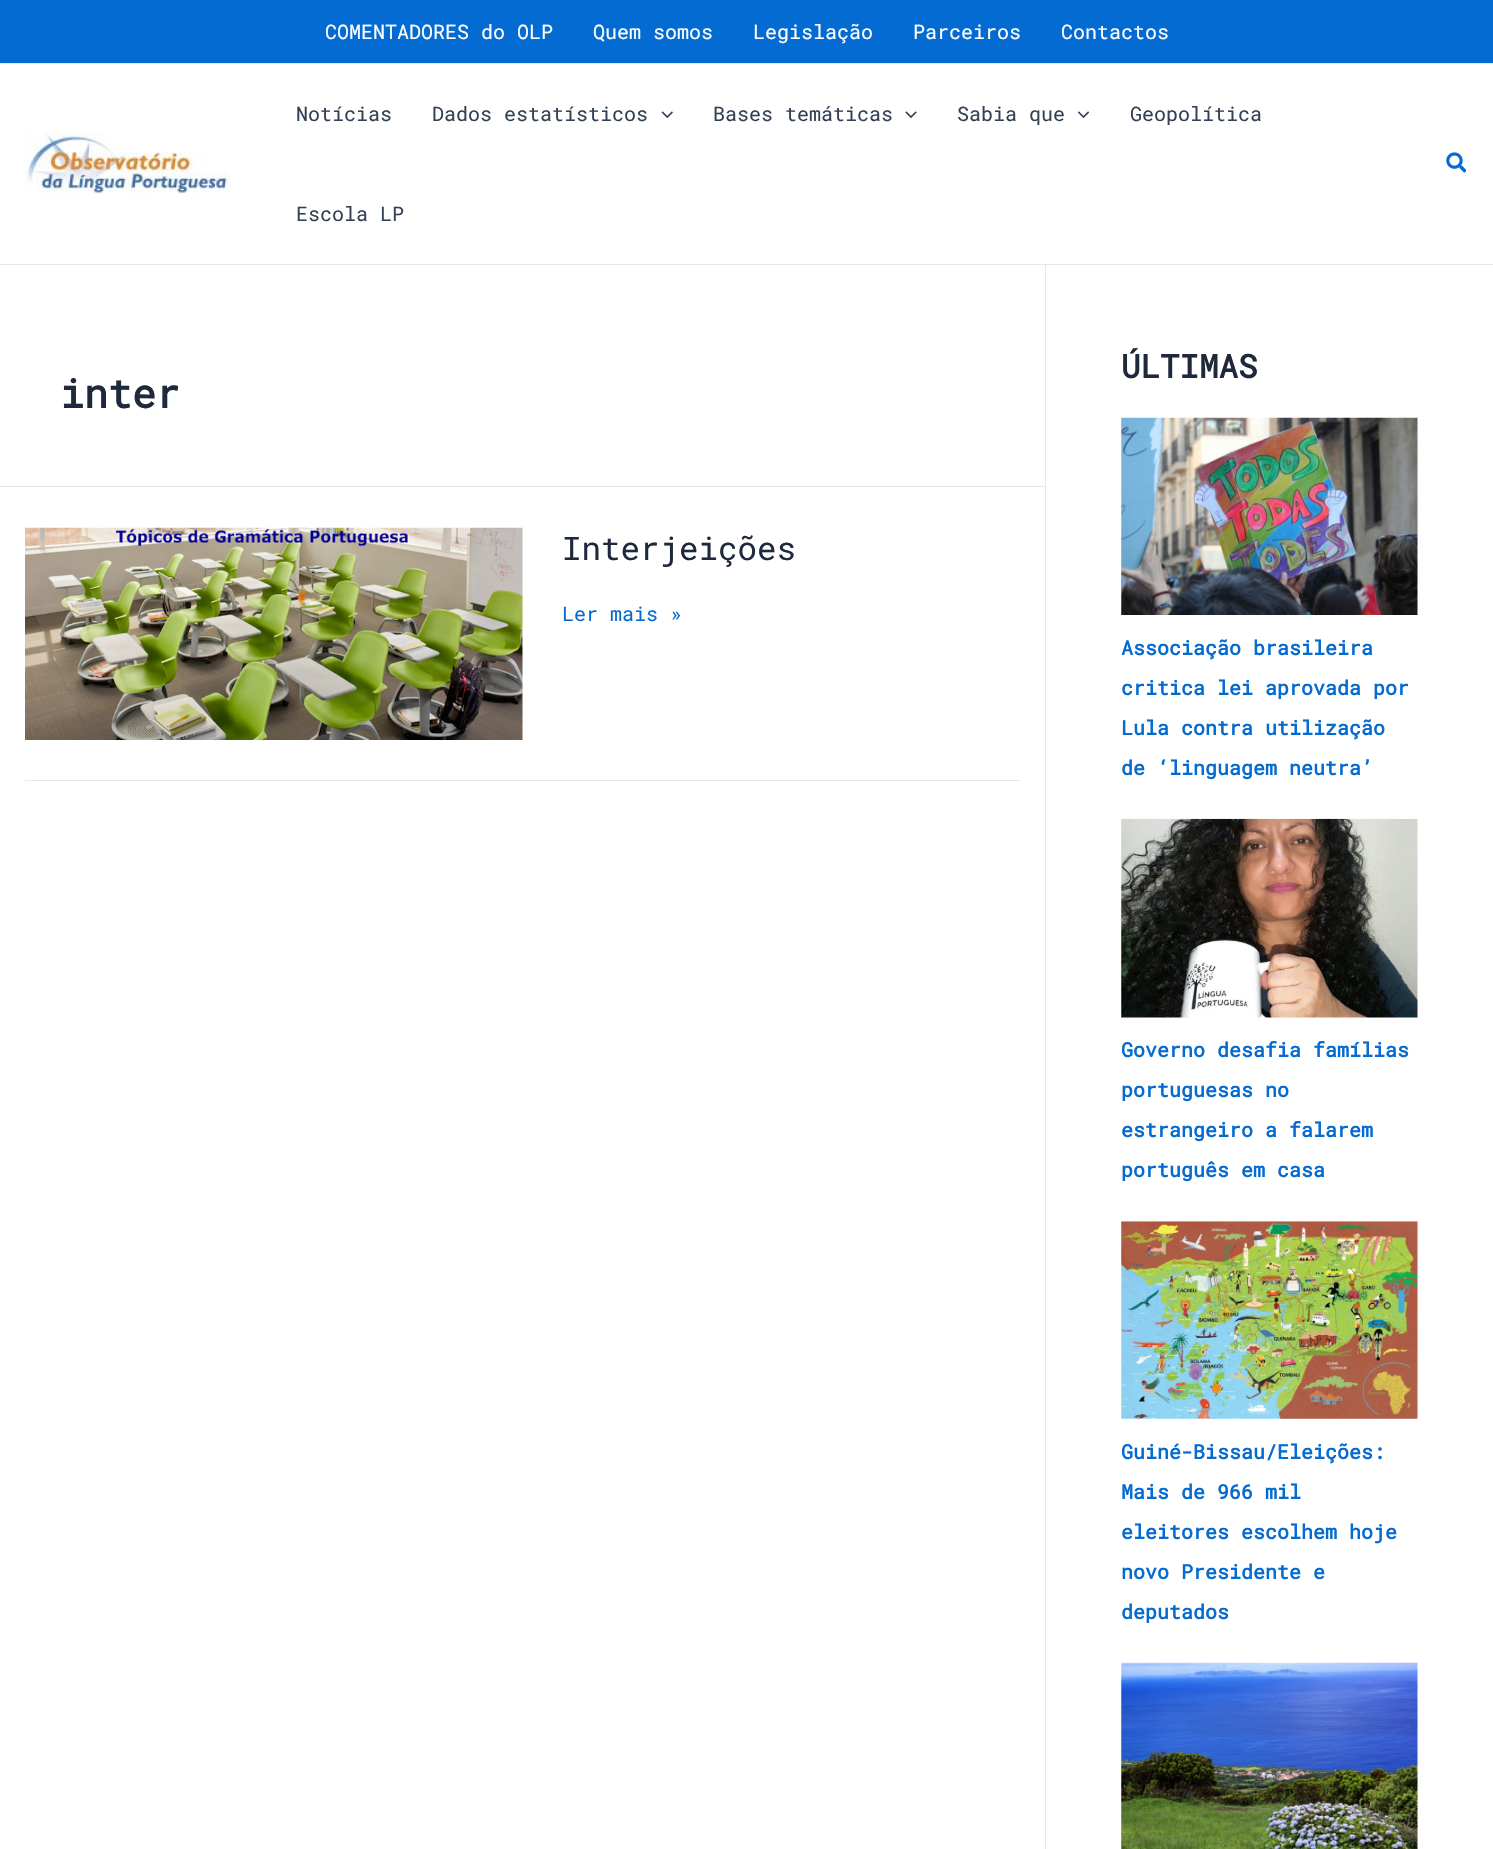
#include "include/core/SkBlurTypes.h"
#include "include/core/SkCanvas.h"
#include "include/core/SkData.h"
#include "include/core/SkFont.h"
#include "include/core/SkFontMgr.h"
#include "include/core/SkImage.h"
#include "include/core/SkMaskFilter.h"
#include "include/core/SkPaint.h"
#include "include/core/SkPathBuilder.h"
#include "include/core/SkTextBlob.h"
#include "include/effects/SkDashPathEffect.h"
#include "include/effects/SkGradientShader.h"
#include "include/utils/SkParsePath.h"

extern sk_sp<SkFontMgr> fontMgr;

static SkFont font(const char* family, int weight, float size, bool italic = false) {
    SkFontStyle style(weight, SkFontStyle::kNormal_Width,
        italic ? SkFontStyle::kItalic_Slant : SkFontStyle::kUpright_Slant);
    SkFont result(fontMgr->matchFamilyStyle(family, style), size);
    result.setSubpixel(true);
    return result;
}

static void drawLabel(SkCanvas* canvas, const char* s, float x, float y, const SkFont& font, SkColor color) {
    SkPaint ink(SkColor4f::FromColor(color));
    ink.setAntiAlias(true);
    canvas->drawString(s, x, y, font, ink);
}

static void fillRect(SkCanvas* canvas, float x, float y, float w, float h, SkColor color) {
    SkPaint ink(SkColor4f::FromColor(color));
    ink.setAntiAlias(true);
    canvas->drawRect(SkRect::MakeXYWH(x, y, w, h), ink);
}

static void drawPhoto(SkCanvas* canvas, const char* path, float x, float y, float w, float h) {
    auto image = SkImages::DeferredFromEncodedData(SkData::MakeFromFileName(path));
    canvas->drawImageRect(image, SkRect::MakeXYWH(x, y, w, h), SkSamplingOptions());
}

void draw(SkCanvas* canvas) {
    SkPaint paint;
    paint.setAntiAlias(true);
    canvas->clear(0xFFFFFFFF);
    fillRect(canvas, 0, 0, 1493, 63, 0xFF046BD2);
    fillRect(canvas, 0, 63, 1493, 1, 0xFFE2E8F0);
    SkFont font1 = font("Roboto Mono", 400, 20);
    drawLabel(canvas, "COMENTADORES do OLP", 325, 39, font1, 0xFFFFFFFF);
    drawLabel(canvas, "Quem somos", 593, 39, font1, 0xFFFFFFFF);
    drawLabel(canvas, "Legislação", 753, 39, font1, 0xFFFFFFFF);
    drawLabel(canvas, "Parceiros", 913, 39, font1, 0xFFFFFFFF);
    drawLabel(canvas, "Contactos", 1061, 39, font1, 0xFFFFFFFF);
    fillRect(canvas, 0, 264, 1493, 1, 0xFFE2E8F0);
    drawPhoto(canvas, "assets/img1.png", 25, 132, 205, 62);
    drawLabel(canvas, "Notícias", 296, 121, font1, 0xFF334155);
    drawLabel(canvas, "Dados estatísticos", 432, 121, font1, 0xFF334155);
    drawPhoto(canvas, "assets/img2.png", 661, 111, 12, 8);
    drawLabel(canvas, "Bases temáticas", 713, 121, font1, 0xFF334155);
    drawPhoto(canvas, "assets/img3.png", 905, 111, 12, 8);
    drawLabel(canvas, "Sabia que", 957, 121, font1, 0xFF334155);
    drawPhoto(canvas, "assets/img4.png", 1078, 111, 12, 8);
    drawLabel(canvas, "Geopolítica", 1130, 121, font1, 0xFF334155);
    drawLabel(canvas, "Escola LP", 296, 221, font1, 0xFF334155);
    drawPhoto(canvas, "assets/img5.png", 1446, 152, 20, 21);
    fillRect(canvas, 1045, 265, 1, 1584, 0xFFE2E8F0);
    fillRect(canvas, 0, 486, 1045, 1, 0xFFE2E8F0);
    SkFont font2 = font("Roboto Mono", 700, 40);
    drawLabel(canvas, "inter", 60, 408, font2, 0xFF1E293B);
    fillRect(canvas, 25, 780, 995, 1, 0xFFE2E8F0);
    drawPhoto(canvas, "assets/img6.png", 25, 527, 498, 213);
    SkFont font3 = font("Roboto Mono", 400, 32.5f);
    drawLabel(canvas, "Interjeições", 562, 560, font3, 0xFF1E293B);
    drawLabel(canvas, "Ler mais »", 562, 621, font1, 0xFF046BD2);
    SkFont font4 = font("Roboto Mono", 700, 32.5f);
    drawLabel(canvas, "ÚLTIMAS", 1121, 378, font4, 0xFF1E293B);
    drawPhoto(canvas, "assets/img7.png", 1121, 417, 297, 198);
    SkFont font5 = font("Roboto Mono", 700, 20);
    drawLabel(canvas, "Associação brasileira", 1121, 655, font5, 0xFF046BD2);
    drawLabel(canvas, "critica lei aprovada por", 1121, 695, font5, 0xFF046BD2);
    drawLabel(canvas, "Lula contra utilização", 1121, 735, font5, 0xFF046BD2);
    drawLabel(canvas, "de ‘linguagem neutra’", 1121, 775, font5, 0xFF046BD2);
    drawPhoto(canvas, "assets/img8.png", 1121, 818, 297, 200);
    drawLabel(canvas, "Governo desafia famílias", 1121, 1057, font5, 0xFF046BD2);
    drawLabel(canvas, "portuguesas no", 1121, 1097, font5, 0xFF046BD2);
    drawLabel(canvas, "estrangeiro a falarem", 1121, 1137, font5, 0xFF046BD2);
    drawLabel(canvas, "português em casa", 1121, 1177, font5, 0xFF046BD2);
    drawPhoto(canvas, "assets/img9.png", 1121, 1221, 297, 198);
    drawLabel(canvas, "Guiné-Bissau/Eleições:", 1121, 1459, font5, 0xFF046BD2);
    drawLabel(canvas, "Mais de 966 mil", 1121, 1499, font5, 0xFF046BD2);
    drawLabel(canvas, "eleitores escolhem hoje", 1121, 1539, font5, 0xFF046BD2);
    drawLabel(canvas, "novo Presidente e", 1121, 1579, font5, 0xFF046BD2);
    drawLabel(canvas, "deputados", 1121, 1619, font5, 0xFF046BD2);
    drawPhoto(canvas, "assets/img10.png", 1121, 1662, 297, 187);
}
